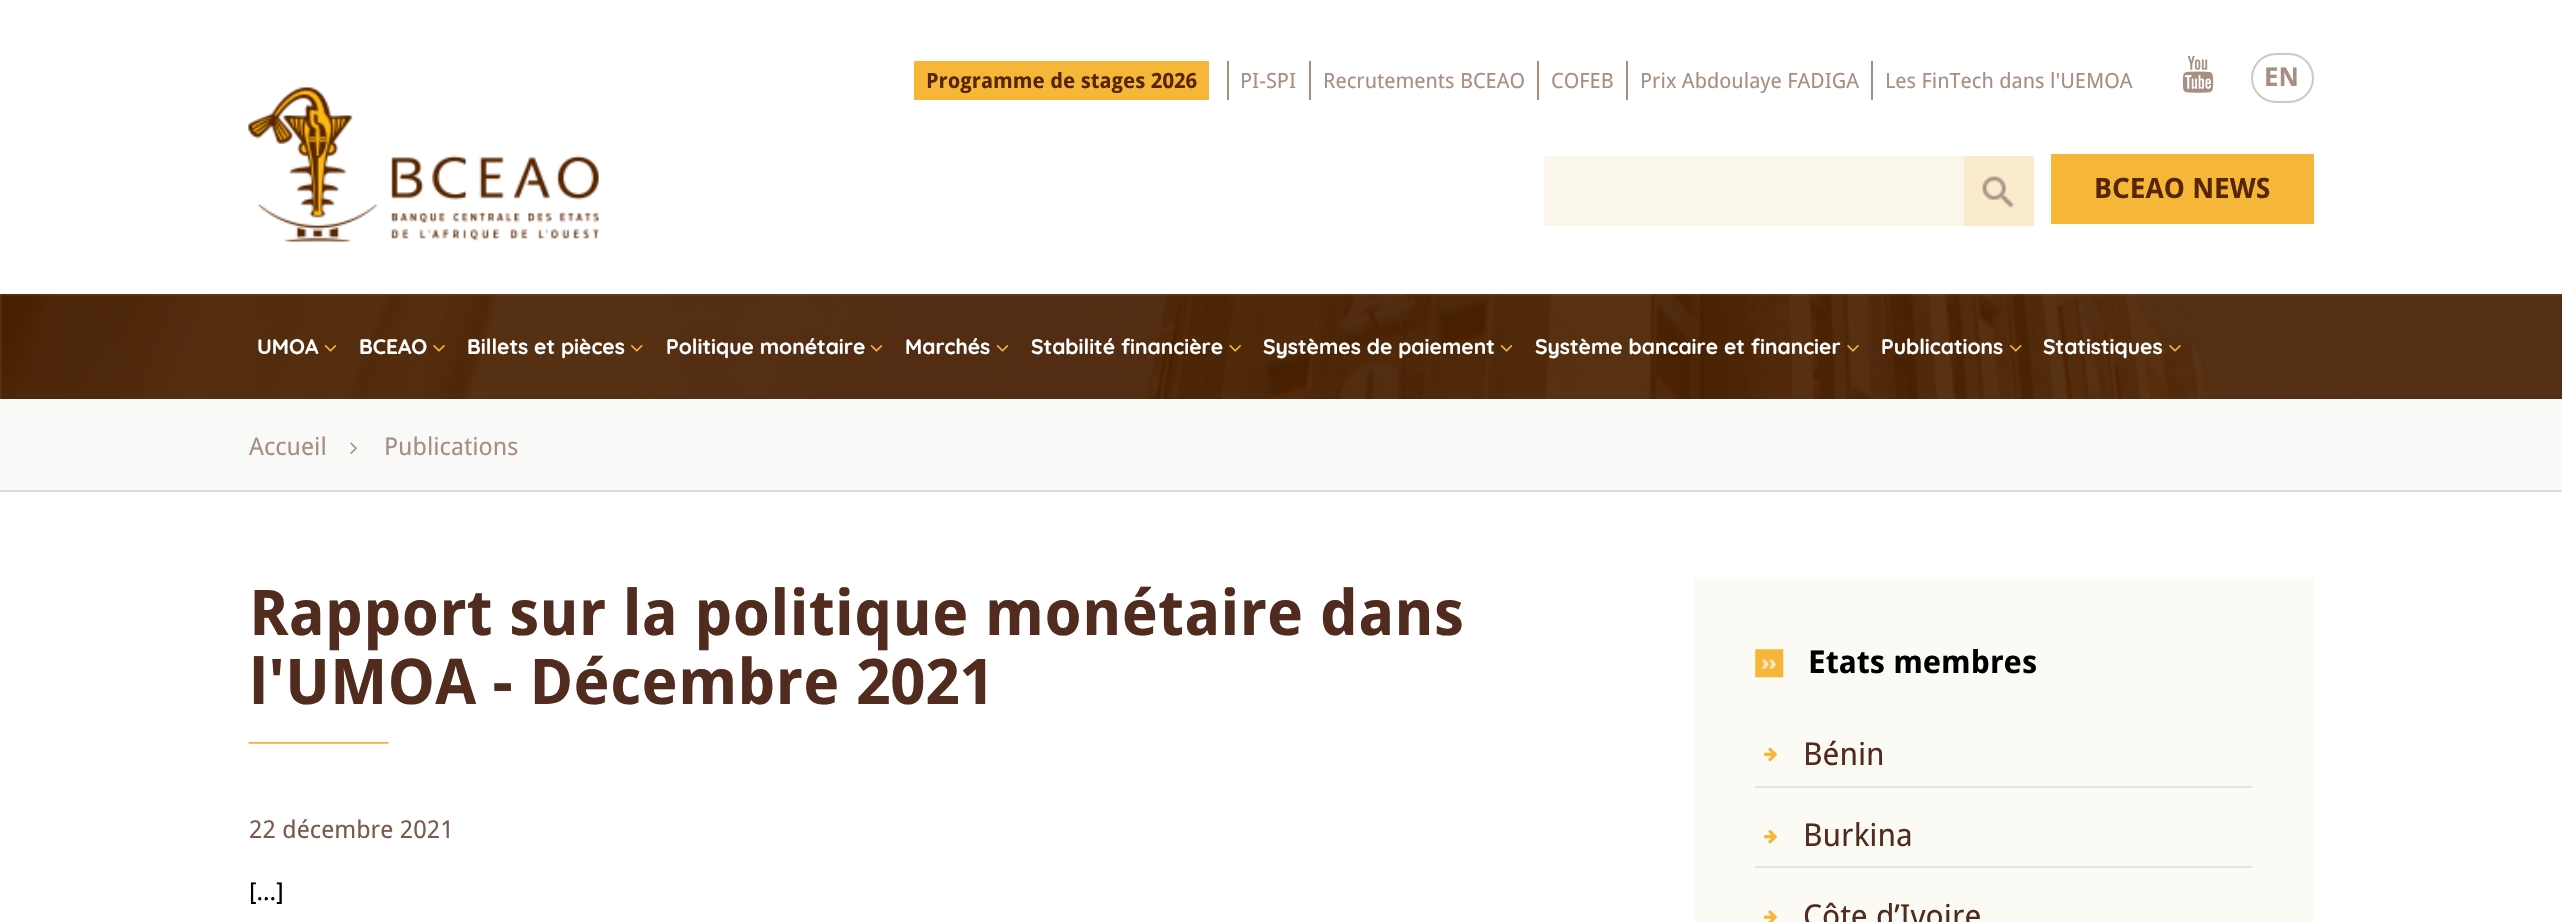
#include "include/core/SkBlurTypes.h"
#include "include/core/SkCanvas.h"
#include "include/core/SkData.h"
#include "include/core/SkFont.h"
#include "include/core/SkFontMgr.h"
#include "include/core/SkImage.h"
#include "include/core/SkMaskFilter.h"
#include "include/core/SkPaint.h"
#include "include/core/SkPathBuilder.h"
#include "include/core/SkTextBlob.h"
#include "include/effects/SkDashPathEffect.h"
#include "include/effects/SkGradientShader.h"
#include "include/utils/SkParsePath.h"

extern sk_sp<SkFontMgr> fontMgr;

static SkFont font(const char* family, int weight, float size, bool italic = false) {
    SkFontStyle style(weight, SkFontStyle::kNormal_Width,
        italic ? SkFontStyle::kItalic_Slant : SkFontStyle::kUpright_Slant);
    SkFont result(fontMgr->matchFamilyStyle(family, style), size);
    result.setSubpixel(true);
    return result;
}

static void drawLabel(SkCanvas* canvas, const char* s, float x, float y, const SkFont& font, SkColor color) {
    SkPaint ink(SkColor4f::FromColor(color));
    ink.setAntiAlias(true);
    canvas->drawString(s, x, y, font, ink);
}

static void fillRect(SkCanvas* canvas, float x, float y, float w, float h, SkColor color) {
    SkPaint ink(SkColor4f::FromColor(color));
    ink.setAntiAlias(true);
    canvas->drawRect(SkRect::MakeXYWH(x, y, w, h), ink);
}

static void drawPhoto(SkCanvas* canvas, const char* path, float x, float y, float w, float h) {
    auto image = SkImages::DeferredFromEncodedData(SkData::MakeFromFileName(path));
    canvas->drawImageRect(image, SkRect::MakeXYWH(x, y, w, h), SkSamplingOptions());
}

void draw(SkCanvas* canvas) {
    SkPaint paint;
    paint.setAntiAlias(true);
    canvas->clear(0xFFFFFFFF);
    fillRect(canvas, 914, 61, 295, 39, 0xFFF6B738);
    SkFont font1 = font("Droid Sans", 700, 21);
    drawLabel(canvas, "Programme de stages 2026", 926, 88, font1, 0xFF562600);
    fillRect(canvas, 1227, 61, 2, 39, 0xFFA78F84);
    SkFont font2 = font("Droid Sans", 400, 21);
    drawLabel(canvas, "PI-SPI", 1240, 88, font2, 0xFFA78F84);
    fillRect(canvas, 1309, 61, 2, 39, 0xFFA78F84);
    drawLabel(canvas, "Recrutements BCEAO", 1323, 88, font2, 0xFFA78F84);
    fillRect(canvas, 1537, 61, 2, 39, 0xFFA78F84);
    drawLabel(canvas, "COFEB", 1551, 88, font2, 0xFFA78F84);
    fillRect(canvas, 1626, 61, 2, 39, 0xFFA78F84);
    drawLabel(canvas, "Prix Abdoulaye FADIGA", 1640, 88, font2, 0xFFA78F84);
    fillRect(canvas, 1871, 61, 2, 39, 0xFFA78F84);
    drawLabel(canvas, "Les FinTech dans l'UEMOA", 1885, 88, font2, 0xFFA78F84);
    drawPhoto(canvas, "assets/img1.png", 2182, 56, 32, 37);
    paint.setStroke(true);
    paint.setStrokeWidth(2);
    paint.setColor(0xFFD3C7C1);
    canvas->drawRoundRect(SkRect::MakeXYWH(2252, 54, 61, 48), 24, 24, paint);
    SkFont font3 = font("Droid Sans", 700, 26);
    drawLabel(canvas, "EN", 2264, 86, font3, 0xFFA78F84);
    fillRect(canvas, 1544, 156, 420, 70, 0xFFFAF6EA);
    fillRect(canvas, 1964, 156, 70, 70, 0xFFF9EBCC);
    drawPhoto(canvas, "assets/img2.png", 1981, 175, 34, 34);
    drawPhoto(canvas, "assets/img3.png", 248, 87, 351, 155);
    drawPhoto(canvas, "assets/img4.png", 0, 294, 2562, 105);
    fillRect(canvas, 2051, 154, 263, 70, 0xFFF6B738);
    SkFont font4 = font("Droid Sans", 700, 28);
    drawLabel(canvas, "BCEAO NEWS", 2094, 198, font4, 0xFF562600);
    SkFont font5 = font("Quicksand", 700, 21);
    drawLabel(canvas, "UMOA", 257, 354, font5, 0xFFFFFFFF);
    drawPhoto(canvas, "assets/img5.png", 324, 345, 13, 7);
    drawLabel(canvas, "BCEAO", 359, 354, font5, 0xFFFFFFFF);
    drawPhoto(canvas, "assets/img6.png", 433, 345, 12, 7);
    drawLabel(canvas, "Billets et pièces", 467, 354, font5, 0xFFFFFFFF);
    drawPhoto(canvas, "assets/img7.png", 631, 345, 12, 7);
    drawLabel(canvas, "Politique monétaire", 666, 354, font5, 0xFFFFFFFF);
    drawPhoto(canvas, "assets/img8.png", 870, 345, 13, 7);
    drawLabel(canvas, "Marchés", 905, 354, font5, 0xFFFFFFFF);
    drawPhoto(canvas, "assets/img8.png", 996, 345, 13, 7);
    drawLabel(canvas, "Stabilité financière", 1031, 354, font5, 0xFFFFFFFF);
    drawPhoto(canvas, "assets/img9.png", 1229, 345, 12, 7);
    drawLabel(canvas, "Systèmes de paiement", 1263, 354, font5, 0xFFFFFFFF);
    drawPhoto(canvas, "assets/img10.png", 1500, 345, 13, 7);
    drawLabel(canvas, "Système bancaire et financier", 1535, 354, font5, 0xFFFFFFFF);
    drawPhoto(canvas, "assets/img11.png", 1847, 345, 12, 7);
    drawLabel(canvas, "Publications", 1881, 354, font5, 0xFFFFFFFF);
    drawPhoto(canvas, "assets/img12.png", 2010, 345, 12, 7);
    drawLabel(canvas, "Statistiques", 2043, 354, font5, 0xFFFFFFFF);
    drawPhoto(canvas, "assets/img13.png", 2169, 345, 12, 7);
    fillRect(canvas, 0, 399, 2562, 91, 0xFFF9F9F8);
    fillRect(canvas, 0, 490, 2562, 2, 0xFFDFDCD9);
    SkFont font6 = font("Droid Sans", 400, 24.5f);
    drawLabel(canvas, "Accueil", 249, 455, font6, 0xFFA78F84);
    drawPhoto(canvas, "assets/img14.png", 350, 442, 7, 12);
    drawLabel(canvas, "Publications", 384, 455, font6, 0xFFA78F84);
    drawPhoto(canvas, "assets/img15.png", 248, 742, 141, 2);
    SkFont font7 = font("Droid Sans", 700, 63);
    drawLabel(canvas, "Rapport sur la politique monétaire dans", 249, 635, font7, 0xFF512B1E);
    drawLabel(canvas, "l'UMOA - Décembre 2021", 249, 704, font7, 0xFF512B1E);
    drawLabel(canvas, "22 décembre 2021", 249, 838, font6, 0xFF7B5A4F);
    drawLabel(canvas, "[...]", 249, 900, font6, 0xFF000000);
    fillRect(canvas, 1694, 579, 620, 343, 0xFFFCFAF4);
    drawPhoto(canvas, "assets/img16.png", 1755, 649, 29, 29);
    SkFont font8 = font("Droid Sans", 700, 31.5f);
    drawLabel(canvas, "Etats membres", 1808, 673, font8, 0xFF000000);
    fillRect(canvas, 1755, 786, 497, 2, 0xFFE4E3E1);
    drawPhoto(canvas, "assets/img17.png", 1764, 747, 13, 15);
    SkFont font9 = font("Droid Sans", 400, 31.5f);
    drawLabel(canvas, "Bénin", 1803, 765, font9, 0xFF512B1E);
    fillRect(canvas, 1755, 866, 497, 2, 0xFFE4E3E1);
    drawPhoto(canvas, "assets/img18.png", 1764, 829, 13, 15);
    drawLabel(canvas, "Burkina", 1803, 846, font9, 0xFF512B1E);
    drawPhoto(canvas, "assets/img19.png", 1764, 910, 13, 12);
    drawLabel(canvas, "Côte d’Ivoire", 1803, 927, font9, 0xFF512B1E);
}
